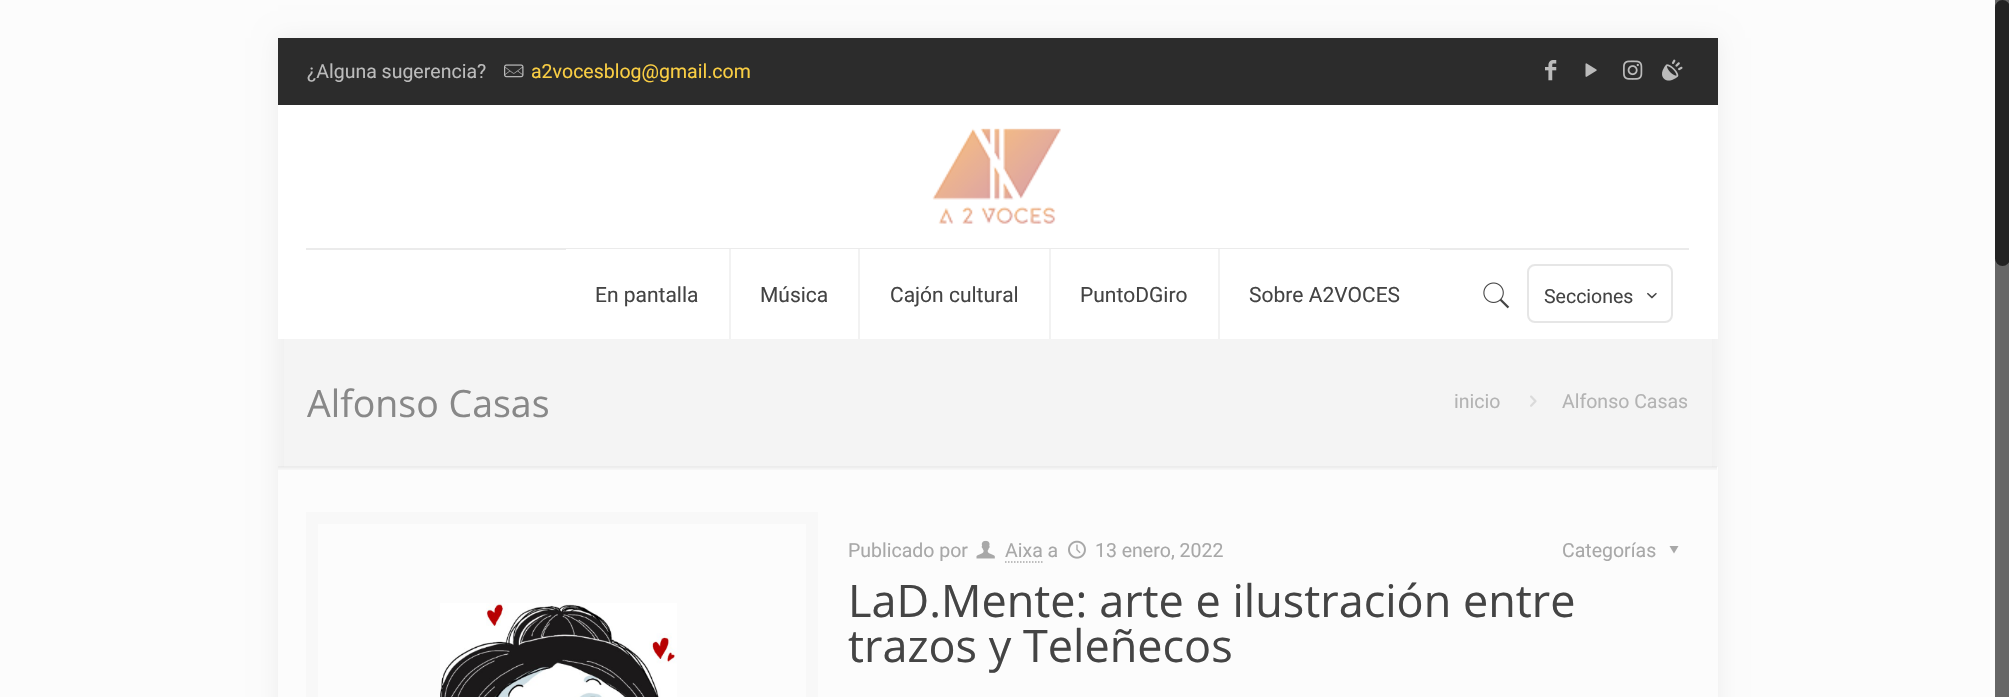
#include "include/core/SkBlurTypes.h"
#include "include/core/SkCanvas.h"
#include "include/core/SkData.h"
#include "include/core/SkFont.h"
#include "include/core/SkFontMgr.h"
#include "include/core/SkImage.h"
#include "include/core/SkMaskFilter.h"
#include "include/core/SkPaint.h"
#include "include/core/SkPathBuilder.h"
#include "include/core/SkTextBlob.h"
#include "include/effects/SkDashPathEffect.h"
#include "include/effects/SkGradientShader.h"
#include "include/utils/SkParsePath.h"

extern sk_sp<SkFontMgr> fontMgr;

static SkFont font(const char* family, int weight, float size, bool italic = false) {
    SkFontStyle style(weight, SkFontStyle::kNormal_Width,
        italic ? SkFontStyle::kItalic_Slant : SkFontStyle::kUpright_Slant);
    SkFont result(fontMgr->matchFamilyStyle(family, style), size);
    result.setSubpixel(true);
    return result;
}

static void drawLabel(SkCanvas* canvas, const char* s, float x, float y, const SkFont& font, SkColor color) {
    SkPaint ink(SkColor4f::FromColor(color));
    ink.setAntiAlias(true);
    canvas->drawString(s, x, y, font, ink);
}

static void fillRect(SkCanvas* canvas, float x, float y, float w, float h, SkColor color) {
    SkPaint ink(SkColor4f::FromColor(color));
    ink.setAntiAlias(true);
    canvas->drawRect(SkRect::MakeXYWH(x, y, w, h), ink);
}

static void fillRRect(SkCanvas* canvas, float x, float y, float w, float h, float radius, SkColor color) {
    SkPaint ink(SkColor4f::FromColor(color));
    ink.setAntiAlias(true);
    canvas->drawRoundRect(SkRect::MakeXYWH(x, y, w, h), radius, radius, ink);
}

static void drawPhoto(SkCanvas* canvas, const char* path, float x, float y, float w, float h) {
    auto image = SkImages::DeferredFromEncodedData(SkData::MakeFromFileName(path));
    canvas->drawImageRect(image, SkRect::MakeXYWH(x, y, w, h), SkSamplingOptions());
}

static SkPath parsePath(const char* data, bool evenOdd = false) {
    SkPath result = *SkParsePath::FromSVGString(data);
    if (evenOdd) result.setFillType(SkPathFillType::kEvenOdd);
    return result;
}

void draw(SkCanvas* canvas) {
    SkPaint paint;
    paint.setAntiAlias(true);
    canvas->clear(0xFFFCFCFC);
    paint.setColor(0x0F000000);
    paint.setMaskFilter(SkMaskFilter::MakeBlur(kNormal_SkBlurStyle, 11));
    canvas->drawRect(SkRect::MakeXYWH(278, 38, 1440, 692), paint);
    paint.setMaskFilter(nullptr);
    fillRect(canvas, 278, 467, 1440, 230, 0xFFFCFCFC);
    fillRect(canvas, 284, 339, 1428, 128, 0xFFF4F4F4);
    fillRect(canvas, 278, 38, 1440, 67, 0xFF2C2C2C);
    SkFont font1 = font("Roboto", 400, 19.5f);
    drawLabel(canvas, "¿Alguna sugerencia?", 307, 78, font1, 0xFFBBBBBB);
    drawPhoto(canvas, "assets/img1.png", 504, 64, 20, 14);
    drawLabel(canvas, "a2vocesblog@gmail.com", 531, 78, font1, 0xFFFACE43);
    drawPhoto(canvas, "assets/img2.png", 1545, 60, 12, 21);
    drawPhoto(canvas, "assets/img3.png", 1585, 63, 12, 14);
    drawPhoto(canvas, "assets/img4.png", 1623, 60, 20, 20);
    drawPhoto(canvas, "assets/img5.png", 1662, 59, 21, 22);
    fillRect(canvas, 278, 105, 1440, 234, 0xFFFFFFFF);
    fillRect(canvas, 306, 248, 1383, 2, 0xFFEBEBEB);
    drawPhoto(canvas, "assets/img6.png", 932, 128, 129, 96);
    fillRect(canvas, 566, 249, 864, 1, 0xFFFFFFFF);
    fillRect(canvas, 729, 249, 2, 90, 0xFFF2F2F2);
    SkFont font2 = font("Roboto", 400, 21);
    drawLabel(canvas, "En pantalla", 595, 302, font2, 0xFF444444);
    fillRect(canvas, 858, 249, 2, 90, 0xFFF2F2F2);
    drawLabel(canvas, "Música", 760, 302, font2, 0xFF444444);
    fillRect(canvas, 1049, 249, 2, 90, 0xFFF2F2F2);
    drawLabel(canvas, "Cajón cultural", 890, 302, font2, 0xFF444444);
    fillRect(canvas, 1218, 249, 2, 90, 0xFFF2F2F2);
    drawLabel(canvas, "PuntoDGiro", 1080, 302, font2, 0xFF444444);
    drawLabel(canvas, "Sobre A2VOCES", 1249, 302, font2, 0xFF444444);
    drawPhoto(canvas, "assets/img7.png", 1483, 282, 27, 27);
    paint.setStroke(true);
    paint.setStrokeWidth(2);
    paint.setColor(0xFFE6E6E6);
    canvas->drawRoundRect(SkRect::MakeXYWH(1528, 265, 144, 57), 7, 7, paint);
    drawLabel(canvas, "Secciones", 1544, 303, font1, 0xFF444444);
    drawPhoto(canvas, "assets/img8.png", 1647, 292, 10, 7);
    SkFont font3 = font("Open Sans", 400, 37.5f);
    drawLabel(canvas, "Alfonso Casas", 307, 417, font3, 0xFF888888);
    drawLabel(canvas, "inicio", 1454, 408, font1, 0xFFB3B3B3);
    drawPhoto(canvas, "assets/img9.png", 1530, 395, 7, 12);
    drawLabel(canvas, "Alfonso Casas", 1562, 408, font1, 0xFFB3B3B3);
    drawPhoto(canvas, "assets/img10.png", 278, 466, 1439, 4);
    paint.setStrokeWidth(12);
    paint.setColor(0xFFF8F8F8);
    canvas->drawRect(SkRect::MakeXYWH(312, 518, 500, 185), paint);
    drawPhoto(canvas, "assets/img11.png", 440, 603, 237, 94);
    drawLabel(canvas, "Publicado por", 848, 557, font1, 0xFFA8A8A8);
    drawPhoto(canvas, "assets/img12.png", 976, 540, 19, 19);
    drawLabel(canvas, "Aixa a", 1005, 557, font1, 0xFFA8A8A8);
    paint.setStrokeWidth(1.5f);
    paint.setColor(0xFFA8A8A8);
    paint.setPathEffect(SkDashPathEffect::Make({{1.5f, 1.5f}}, 0));
    canvas->drawPath(parsePath("M1005 562H1042.5"), paint);
    paint.setPathEffect(nullptr);
    drawPhoto(canvas, "assets/img13.png", 1068, 540, 18, 19);
    drawLabel(canvas, "13 enero, 2022", 1095, 557, font1, 0xFFA8A8A8);
    drawLabel(canvas, "Categorías", 1562, 557, font1, 0xFFA8A8A8);
    paint.setStroke(false);
    canvas->drawPath(parsePath("M1678.5 546L1674 553.5L1669.5 546Z"), paint);
    SkFont font4 = font("Open Sans", 400, 45);
    drawLabel(canvas, "LaD.Mente: arte e ilustración entre", 848, 617, font4, 0xFF444444);
    drawLabel(canvas, "trazos y Teleñecos", 848, 662, font4, 0xFF444444);
    fillRect(canvas, 1995, 0, 14, 697, 0xFF666666);
    fillRRect(canvas, 1995, 0, 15, 266, 7.5f, 0xFF222222);
}
